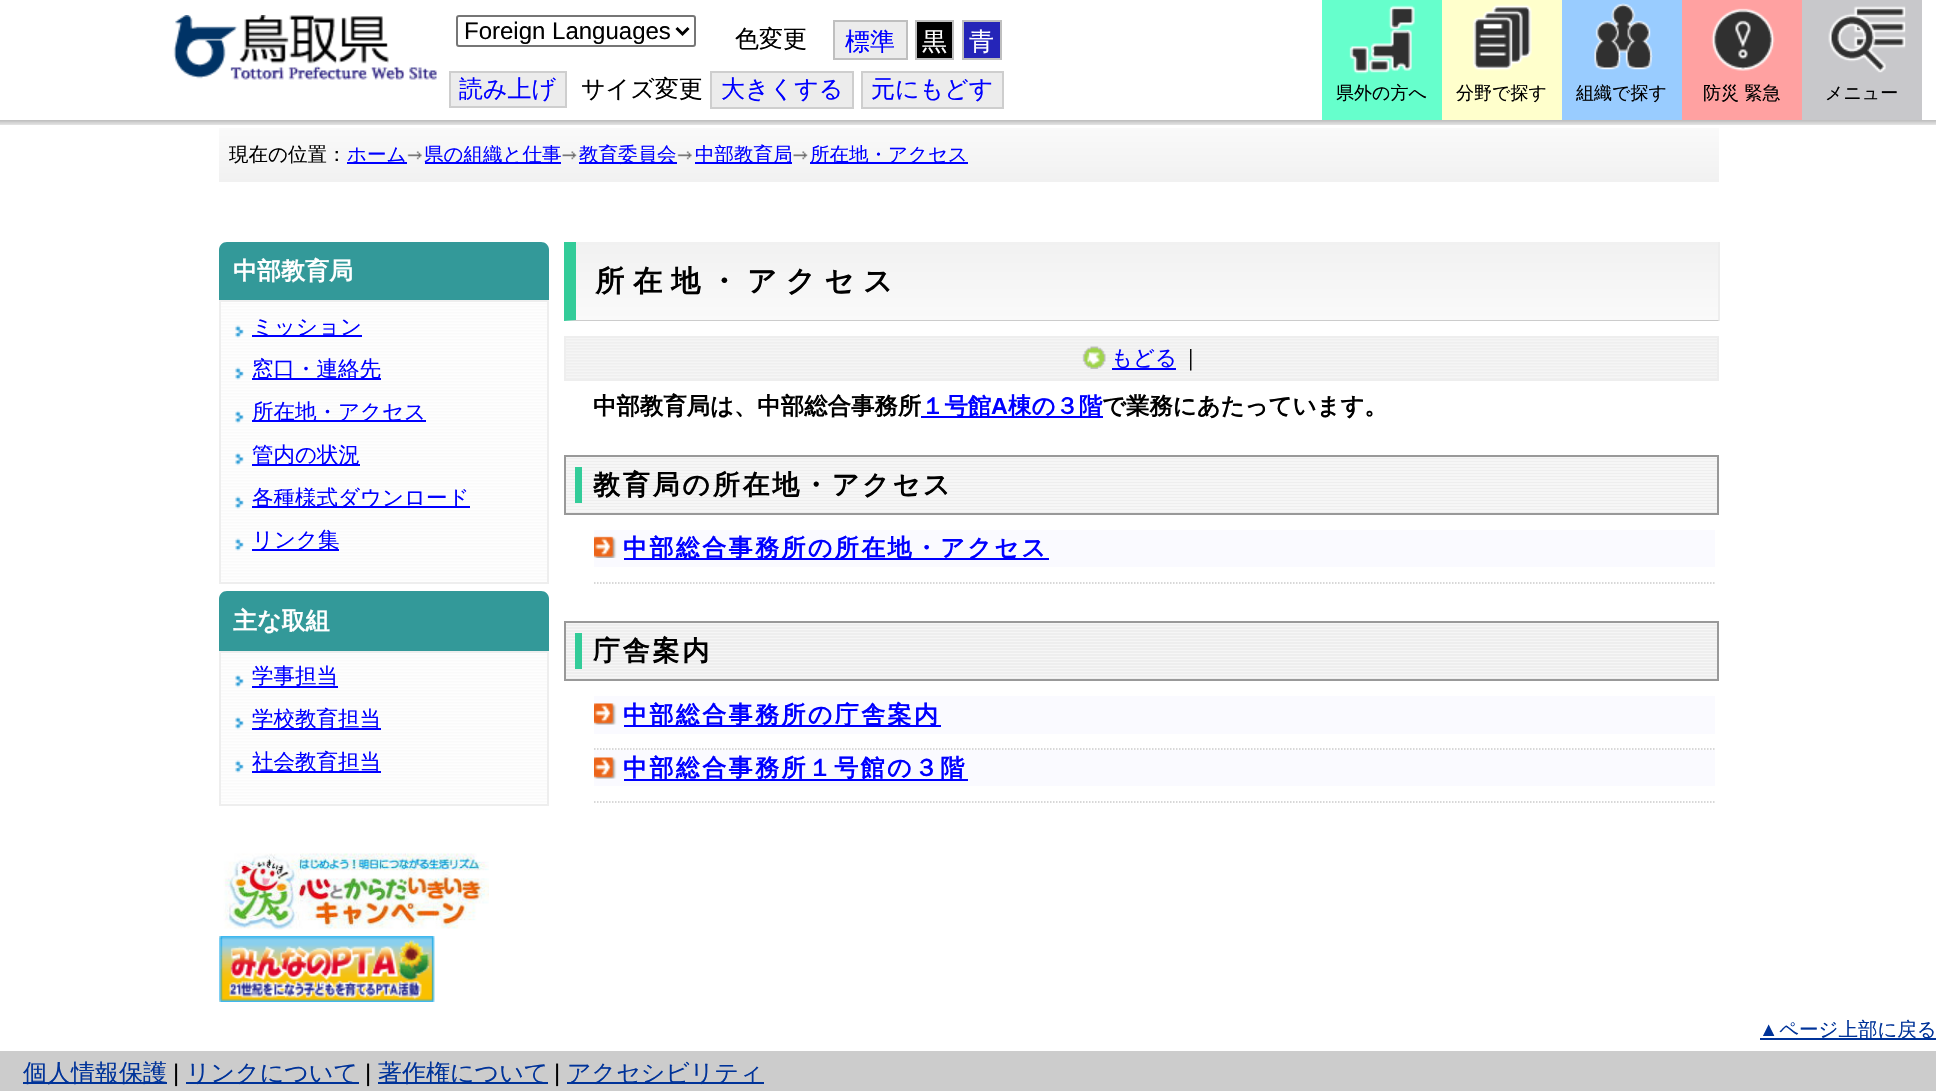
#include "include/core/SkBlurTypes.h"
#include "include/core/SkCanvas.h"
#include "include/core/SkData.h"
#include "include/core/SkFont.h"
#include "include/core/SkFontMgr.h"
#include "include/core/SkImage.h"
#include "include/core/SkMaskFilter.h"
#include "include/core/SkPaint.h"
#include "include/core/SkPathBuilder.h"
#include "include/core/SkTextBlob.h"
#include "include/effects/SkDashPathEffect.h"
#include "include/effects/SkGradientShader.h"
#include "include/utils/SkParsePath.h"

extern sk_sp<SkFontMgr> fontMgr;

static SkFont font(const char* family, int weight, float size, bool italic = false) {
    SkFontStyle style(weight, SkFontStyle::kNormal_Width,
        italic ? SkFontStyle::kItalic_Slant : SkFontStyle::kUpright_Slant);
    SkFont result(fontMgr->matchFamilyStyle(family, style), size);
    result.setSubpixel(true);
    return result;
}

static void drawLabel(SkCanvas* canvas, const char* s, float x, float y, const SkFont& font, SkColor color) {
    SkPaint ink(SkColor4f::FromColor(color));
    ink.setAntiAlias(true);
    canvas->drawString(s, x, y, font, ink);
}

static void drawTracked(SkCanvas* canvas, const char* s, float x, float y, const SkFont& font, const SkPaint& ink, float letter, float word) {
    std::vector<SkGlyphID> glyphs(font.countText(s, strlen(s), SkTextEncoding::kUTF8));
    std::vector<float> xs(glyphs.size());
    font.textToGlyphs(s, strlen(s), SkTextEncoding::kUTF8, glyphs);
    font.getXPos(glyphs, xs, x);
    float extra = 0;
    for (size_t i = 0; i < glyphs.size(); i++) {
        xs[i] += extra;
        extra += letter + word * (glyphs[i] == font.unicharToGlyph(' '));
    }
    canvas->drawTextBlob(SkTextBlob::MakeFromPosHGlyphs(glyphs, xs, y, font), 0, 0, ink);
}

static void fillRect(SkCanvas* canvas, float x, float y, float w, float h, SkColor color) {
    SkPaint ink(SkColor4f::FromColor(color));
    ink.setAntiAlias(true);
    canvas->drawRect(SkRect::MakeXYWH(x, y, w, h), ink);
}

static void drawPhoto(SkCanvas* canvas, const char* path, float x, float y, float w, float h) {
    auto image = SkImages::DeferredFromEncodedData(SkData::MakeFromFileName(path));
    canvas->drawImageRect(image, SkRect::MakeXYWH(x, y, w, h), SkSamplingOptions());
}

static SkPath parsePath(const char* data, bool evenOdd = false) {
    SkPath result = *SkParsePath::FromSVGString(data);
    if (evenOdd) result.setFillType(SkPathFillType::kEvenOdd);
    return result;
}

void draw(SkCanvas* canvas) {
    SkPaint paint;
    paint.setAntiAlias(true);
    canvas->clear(0xFFFFFFFF);
    {
        const SkColor colors[] = {0xFFFAFAFA, 0xFFF1F1F1};
        const float stops[] = {0, 1};
        const SkPoint ends[] = {{969, 127}, {969, 182}};
        paint.setShader(SkGradientShader::MakeLinear(ends, colors, stops, 2, SkTileMode::kClamp));
        paint.setAlpha(255);
    }
    canvas->drawRect(SkRect::MakeXYWH(219, 128, 1500, 54), paint);
    canvas->save();
    canvas->clipRect(SkRect::MakeXYWH(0, 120, 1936, 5));
    paint.setShader(nullptr);
    paint.setColor(0x1A000000);
    paint.setMaskFilter(SkMaskFilter::MakeBlur(kNormal_SkBlurStyle, 4));
    canvas->drawRect(SkRect::MakeXYWH(-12, 2, 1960, 120), paint);
    paint.setMaskFilter(nullptr);
    paint.setMaskFilter(SkMaskFilter::MakeBlur(kNormal_SkBlurStyle, 4));
    canvas->drawRect(SkRect::MakeXYWH(-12, 2, 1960, 120), paint);
    paint.setMaskFilter(nullptr);
    paint.setMaskFilter(SkMaskFilter::MakeBlur(kNormal_SkBlurStyle, 4));
    canvas->drawRect(SkRect::MakeXYWH(-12, 2, 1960, 120), paint);
    paint.setMaskFilter(nullptr);
    paint.setMaskFilter(SkMaskFilter::MakeBlur(kNormal_SkBlurStyle, 4));
    canvas->drawRect(SkRect::MakeXYWH(-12, 2, 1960, 120), paint);
    paint.setMaskFilter(nullptr);
    canvas->restore();
    drawPhoto(canvas, "assets/img1.png", 173, 15, 264, 65);
    paint.setStroke(true);
    paint.setStrokeWidth(2);
    paint.setColor(0xFF767676);
    canvas->drawRoundRect(SkRect::MakeXYWH(457, 16, 238, 30), 2, 2, paint);
    paint.setStrokeWidth(3);
    paint.setColor(0xFF000000);
    canvas->drawPath(parsePath("M676.5 28L682.5 34L688.5 28"), paint);
    SkFont font1 = font("Liberation Sans", 400, 24);
    drawLabel(canvas, "Foreign Languages", 464, 39, font1, 0xFF000000);
    SkFont font2 = font("WenQuanYi Zen Hei", 500, 24);
    drawLabel(canvas, "色変更", 735, 47, font2, 0xFF000000);
    paint.setStroke(false);
    paint.setColor(0xFFECECEC);
    canvas->drawRect(SkRect::MakeXYWH(834, 21, 73, 38), paint);
    paint.setStroke(true);
    paint.setStrokeWidth(2);
    paint.setColor(0xFFBFBFBF);
    canvas->drawRect(SkRect::MakeXYWH(834, 21, 73, 38), paint);
    SkFont font3 = font("WenQuanYi Zen Hei", 500, 25);
    drawLabel(canvas, "標準", 845, 50, font3, 0xFF0000FF);
    paint.setStroke(false);
    paint.setColor(0xFF000000);
    canvas->drawRect(SkRect::MakeXYWH(916, 21, 37, 38), paint);
    paint.setStroke(true);
    paint.setColor(0xFFBFBFBF);
    canvas->drawRect(SkRect::MakeXYWH(916, 21, 37, 38), paint);
    drawLabel(canvas, "黒", 922, 50, font3, 0xFFFFFFFF);
    paint.setStroke(false);
    paint.setColor(0xFF2525B8);
    canvas->drawRect(SkRect::MakeXYWH(963, 21, 38, 38), paint);
    paint.setStroke(true);
    paint.setColor(0xFFBFBFBF);
    canvas->drawRect(SkRect::MakeXYWH(963, 21, 38, 38), paint);
    drawLabel(canvas, "青", 969, 50, font3, 0xFFFFFFFF);
    paint.setStroke(false);
    paint.setColor(0xFFECECEC);
    canvas->drawRect(SkRect::MakeXYWH(450, 72, 116, 35), paint);
    paint.setStroke(true);
    paint.setColor(0xFFCECECE);
    canvas->drawRect(SkRect::MakeXYWH(450, 72, 116, 35), paint);
    drawLabel(canvas, "読み上げ", 459, 97, font2, 0xFF0000FF);
    drawLabel(canvas, "サイズ変更", 581, 97, font2, 0xFF000000);
    fillRect(canvas, 712, 73, 140, 34, 0xFFECECEC);
    drawLabel(canvas, "大きくする", 721, 97, font2, 0xFF0000FF);
    fillRect(canvas, 710, 71, 144, 2, 0xFFCECECE);
    fillRect(canvas, 710, 107, 34, 2, 0xFFCECECE);
    fillRect(canvas, 710, 71, 2, 37, 0xFFCECECE);
    fillRect(canvas, 852, 71, 2, 37, 0xFFCECECE);
    fillRect(canvas, 744, 107, 110, 2, 0xFFCECECE);
    fillRect(canvas, 863, 73, 139, 34, 0xFFECECEC);
    drawLabel(canvas, "元にもどす", 871, 97, font2, 0xFF0000FF);
    fillRect(canvas, 861, 71, 143, 2, 0xFFCECECE);
    fillRect(canvas, 861, 107, 35, 2, 0xFFCECECE);
    fillRect(canvas, 861, 71, 2, 37, 0xFFCECECE);
    fillRect(canvas, 1002, 71, 2, 37, 0xFFCECECE);
    fillRect(canvas, 896, 107, 108, 2, 0xFFCECECE);
    fillRect(canvas, 1322, 0, 120, 120, 0xFF66FFCC);
    drawPhoto(canvas, "assets/img2.png", 1349, 5, 66, 69);
    SkFont font4 = font("WenQuanYi Zen Hei", 500, 18);
    drawLabel(canvas, "県外の方へ", 1336, 99, font4, 0xFF000000);
    fillRect(canvas, 1442, 0, 120, 120, 0xFFFFFFCC);
    drawPhoto(canvas, "assets/img3.png", 1472, 4, 60, 67);
    drawLabel(canvas, "分野で探す", 1456, 99, font4, 0xFF000000);
    fillRect(canvas, 1562, 0, 120, 120, 0xFF99CCFF);
    drawPhoto(canvas, "assets/img4.png", 1594, 3, 59, 67);
    drawLabel(canvas, "組織で探す", 1576, 99, font4, 0xFF000000);
    fillRect(canvas, 1682, 0, 120, 120, 0xFFFFA1A1);
    drawPhoto(canvas, "assets/img5.png", 1711, 8, 64, 63);
    drawLabel(canvas, "防災 緊急", 1703, 99, font4, 0xFF000000);
    fillRect(canvas, 1802, 0, 120, 120, 0xFFC8C8CB);
    drawPhoto(canvas, "assets/img6.png", 1828, 6, 78, 67);
    drawLabel(canvas, "メニュー", 1825, 99, font4, 0xFF000000);
    SkFont font5 = font("WenQuanYi Zen Hei", 500, 19.5f);
    drawLabel(canvas, "現在の位置：", 229, 161, font5, 0xFF000000);
    fillRect(canvas, 347, 162, 60, 2, 0xFF0000FF);
    drawLabel(canvas, "ホーム", 347, 161, font5, 0xFF0000FF);
    drawPhoto(canvas, "assets/img7.png", 407, 151, 15, 9);
    fillRect(canvas, 425, 162, 136, 2, 0xFF0000FF);
    drawLabel(canvas, "県の組織と仕事", 424, 161, font5, 0xFF0000FF);
    drawPhoto(canvas, "assets/img8.png", 562, 151, 15, 9);
    fillRect(canvas, 579, 162, 98, 2, 0xFF0000FF);
    drawLabel(canvas, "教育委員会", 579, 161, font5, 0xFF0000FF);
    drawPhoto(canvas, "assets/img7.png", 677, 151, 15, 9);
    fillRect(canvas, 695, 162, 97, 2, 0xFF0000FF);
    drawLabel(canvas, "中部教育局", 695, 161, font5, 0xFF0000FF);
    drawPhoto(canvas, "assets/img9.png", 793, 151, 15, 9);
    fillRect(canvas, 810, 162, 158, 2, 0xFF0000FF);
    drawLabel(canvas, "所在地・アクセス", 810, 161, font5, 0xFF0000FF);
    paint.setStroke(false);
    paint.setColor(0xFF339999);
    canvas->drawPath(parsePath("M227 242H541C545.5 242 549 245.5 549 250V300H219V250C219 245.5 222.5 242 227 242Z"), paint);
    SkFont font6 = font("WenQuanYi Zen Hei", 700, 24);
    drawLabel(canvas, "中部教育局", 233, 279, font6, 0xFFFFFFFF);
    drawPhoto(canvas, "assets/img10.png", 221, 302, 326, 280);
    paint.setStroke(true);
    paint.setColor(0xFFEEEEEE);
    canvas->drawRect(SkRect::MakeXYWH(220, 301, 328, 282), paint);
    drawPhoto(canvas, "assets/img11.png", 235, 325, 9, 13);
    fillRect(canvas, 252, 335, 110, 2, 0xFF0000FF);
    SkFont font7 = font("WenQuanYi Zen Hei", 500, 21.5f);
    drawLabel(canvas, "ミッション", 252, 334, font7, 0xFF0000FF);
    drawPhoto(canvas, "assets/img11.png", 235, 367, 9, 13);
    fillRect(canvas, 252, 378, 129, 2, 0xFF0000FF);
    drawLabel(canvas, "窓口・連絡先", 252, 376, font7, 0xFF0000FF);
    drawPhoto(canvas, "assets/img12.png", 235, 410, 9, 14);
    fillRect(canvas, 252, 420, 174, 2, 0xFF0000FF);
    drawLabel(canvas, "所在地・アクセス", 252, 419, font7, 0xFF0000FF);
    drawPhoto(canvas, "assets/img12.png", 235, 452, 9, 14);
    fillRect(canvas, 252, 464, 108, 2, 0xFF0000FF);
    drawLabel(canvas, "管内の状況", 252, 462, font7, 0xFF0000FF);
    drawPhoto(canvas, "assets/img11.png", 235, 496, 9, 13);
    fillRect(canvas, 252, 506, 218, 2, 0xFF0000FF);
    drawLabel(canvas, "各種様式ダウンロード", 252, 505, font7, 0xFF0000FF);
    drawPhoto(canvas, "assets/img11.png", 235, 538, 9, 13);
    fillRect(canvas, 252, 549, 87, 2, 0xFF0000FF);
    drawLabel(canvas, "リンク集", 252, 547, font7, 0xFF0000FF);
    paint.setStroke(false);
    paint.setColor(0xFF339999);
    canvas->drawPath(parsePath("M227 591H541C545.5 591 549 594.5 549 599V651H219V599C219 594.5 222.5 591 227 591Z"), paint);
    drawLabel(canvas, "主な取組", 233, 629, font6, 0xFFFFFFFF);
    drawPhoto(canvas, "assets/img13.png", 221, 653, 326, 151);
    paint.setStroke(true);
    paint.setColor(0xFFEEEEEE);
    canvas->drawRect(SkRect::MakeXYWH(220, 652, 328, 153), paint);
    drawPhoto(canvas, "assets/img12.png", 235, 674, 9, 14);
    drawLabel(canvas, "学事担当", 252, 683, font7, 0xFF0000FF);
    fillRect(canvas, 252, 686, 86, 2, 0xFF0000FF);
    drawPhoto(canvas, "assets/img12.png", 235, 716, 9, 14);
    fillRect(canvas, 252, 728, 129, 2, 0xFF0000FF);
    drawLabel(canvas, "学校教育担当", 252, 726, font7, 0xFF0000FF);
    drawPhoto(canvas, "assets/img11.png", 235, 760, 9, 13);
    fillRect(canvas, 252, 771, 129, 2, 0xFF0000FF);
    drawLabel(canvas, "社会教育担当", 252, 769, font7, 0xFF0000FF);
    drawPhoto(canvas, "assets/img14.png", 223, 853, 266, 77);
    drawPhoto(canvas, "assets/img15.png", 219, 936, 216, 66);
    paint.setStroke(false);
    {
        const SkColor colors[] = {0xFFF1F1F1, 0xFFFAFAFA};
        const float stops[] = {0, 1};
        const SkPoint ends[] = {{1147, 241}, {1147, 320}};
        paint.setShader(SkGradientShader::MakeLinear(ends, colors, stops, 2, SkTileMode::kClamp));
        paint.setAlpha(255);
    }
    canvas->drawRect(SkRect::MakeXYWH(576, 242, 1142, 78), paint);
    fillRect(canvas, 1718, 242, 2, 79, 0xFFEEEEEE);
    paint.setShader(nullptr);
    paint.setColor(0xFFCCCCCC);
    canvas->drawPath(parsePath("M1719 321H564L576 320H1718Z"), paint);
    paint.setColor(0xFF33CC99);
    canvas->drawPath(parsePath("M564 321V242H576V320Z"), paint);
    SkFont font8 = font("WenQuanYi Zen Hei", 700, 29.25f);
    paint.setColor(0xFF000000);
    drawTracked(canvas, "所在地・アクセス", 595, 291, font8, paint, 8.75f, 0);
    drawPhoto(canvas, "assets/img16.png", 566, 338, 1151, 41);
    paint.setStroke(true);
    paint.setColor(0xFFEEEEEE);
    canvas->drawRect(SkRect::MakeXYWH(565, 337, 1153, 43), paint);
    drawPhoto(canvas, "assets/img17.png", 1082, 346, 24, 23);
    fillRect(canvas, 1112, 368, 64, 2, 0xFF0000FF);
    drawLabel(canvas, "もどる", 1111, 365, font7, 0xFF0000FF);
    drawLabel(canvas, "｜", 1180, 365, font7, 0xFF000000);
    SkFont font9 = font("WenQuanYi Zen Hei", 700, 23.4f);
    drawLabel(canvas, "中部教育局は、中部総合事務所", 593, 414, font9, 0xFF000000);
    fillRect(canvas, 921, 416, 182, 2, 0xFF0000FF);
    drawLabel(canvas, "１号館", 921, 414, font9, 0xFF0000FF);
    SkFont font10 = font("Liberation Sans", 700, 23.4f);
    drawLabel(canvas, "A", 991, 414, font10, 0xFF0000FF);
    drawLabel(canvas, "棟の３階", 1008, 414, font9, 0xFF0000FF);
    drawLabel(canvas, "で業務にあたっています。", 1102, 414, font9, 0xFF000000);
    drawPhoto(canvas, "assets/img18.png", 566, 457, 1151, 56);
    paint.setColor(0xFF999999);
    canvas->drawRect(SkRect::MakeXYWH(565, 456, 1153, 58), paint);
    fillRect(canvas, 575, 467, 7, 36, 0xFF33CC99);
    SkFont font11 = font("WenQuanYi Zen Hei", 700, 27);
    paint.setStroke(false);
    paint.setColor(0xFF000000);
    drawTracked(canvas, "教育局の所在地・アクセス", 593, 494, font11, paint, 2.75f, 0);
    fillRect(canvas, 594, 530, 1121, 37, 0xFFFAFAFF);
    drawPhoto(canvas, "assets/img19.png", 594, 536, 23, 22);
    fillRect(canvas, 624, 558, 425, 2, 0xFF0000FF);
    paint.setColor(0xFF0000FF);
    drawTracked(canvas, "中部総合事務所の所在地・アクセス", 623, 556, font6, paint, 2.4f, 0);
    paint.setStroke(true);
    paint.setStrokeWidth(1.5f);
    paint.setColor(0xFFCCCCCC);
    paint.setPathEffect(SkDashPathEffect::Make({{1.5f, 1.5f}}, 0));
    canvas->drawPath(parsePath("M594 583H1714.5"), paint);
    paint.setPathEffect(nullptr);
    drawPhoto(canvas, "assets/img20.png", 566, 623, 1151, 56);
    paint.setStrokeWidth(2);
    paint.setColor(0xFF999999);
    canvas->drawRect(SkRect::MakeXYWH(565, 622, 1153, 58), paint);
    fillRect(canvas, 575, 633, 7, 36, 0xFF33CC99);
    paint.setStroke(false);
    paint.setColor(0xFF000000);
    drawTracked(canvas, "庁舎案内", 593, 660, font11, paint, 2.75f, 0);
    fillRect(canvas, 594, 696, 1121, 38, 0xFFFAFAFF);
    drawPhoto(canvas, "assets/img21.png", 594, 703, 23, 22);
    fillRect(canvas, 624, 725, 317, 2, 0xFF0000FF);
    paint.setColor(0xFF0000FF);
    drawTracked(canvas, "中部総合事務所の庁舎案内", 623, 723, font6, paint, 2.4f, 0);
    paint.setStroke(true);
    paint.setStrokeWidth(1.5f);
    paint.setColor(0xFFCCCCCC);
    paint.setPathEffect(SkDashPathEffect::Make({{1.5f, 1.5f}}, 0));
    canvas->drawPath(parsePath("M594 749H1714.5"), paint);
    paint.setPathEffect(nullptr);
    fillRect(canvas, 594, 750, 1121, 36, 0xFFFAFAFF);
    drawPhoto(canvas, "assets/img21.png", 594, 757, 23, 22);
    fillRect(canvas, 624, 779, 344, 2, 0xFF0000FF);
    paint.setStroke(false);
    paint.setColor(0xFF0000FF);
    drawTracked(canvas, "中部総合事務所１号館の３階", 623, 776, font6, paint, 2.4f, 0);
    paint.setStroke(true);
    paint.setColor(0xFFCCCCCC);
    paint.setPathEffect(SkDashPathEffect::Make({{1.5f, 1.5f}}, 0));
    canvas->drawPath(parsePath("M594 802H1714.5"), paint);
    paint.setPathEffect(nullptr);
    SkFont font12 = font("Liberation Sans", 400, 19.5f);
    drawLabel(canvas, "▲", 1759, 1036, font12, 0xFF003399);
    fillRect(canvas, 1760, 1038, 176, 2, 0xFF003399);
    drawLabel(canvas, "ページ上部に戻る", 1779, 1036, font5, 0xFF003399);
    fillRect(canvas, 0, 1051, 1936, 40, 0xFFCCCCCC);
    fillRect(canvas, 23, 1082, 144, 2, 0xFF003399);
    drawLabel(canvas, "個人情報保護", 23, 1081, font2, 0xFF003399);
    drawLabel(canvas, "|", 173, 1081, font1, 0xFF000000);
    fillRect(canvas, 186, 1082, 173, 2, 0xFF003399);
    drawLabel(canvas, "リンクについて", 186, 1081, font2, 0xFF003399);
    drawLabel(canvas, "|", 365, 1081, font1, 0xFF000000);
    fillRect(canvas, 378, 1082, 170, 2, 0xFF003399);
    drawLabel(canvas, "著作権について", 378, 1081, font2, 0xFF003399);
    drawLabel(canvas, "|", 554, 1081, font1, 0xFF000000);
    fillRect(canvas, 567, 1082, 197, 2, 0xFF003399);
    drawLabel(canvas, "アクセシビリティ", 567, 1081, font2, 0xFF003399);
}
